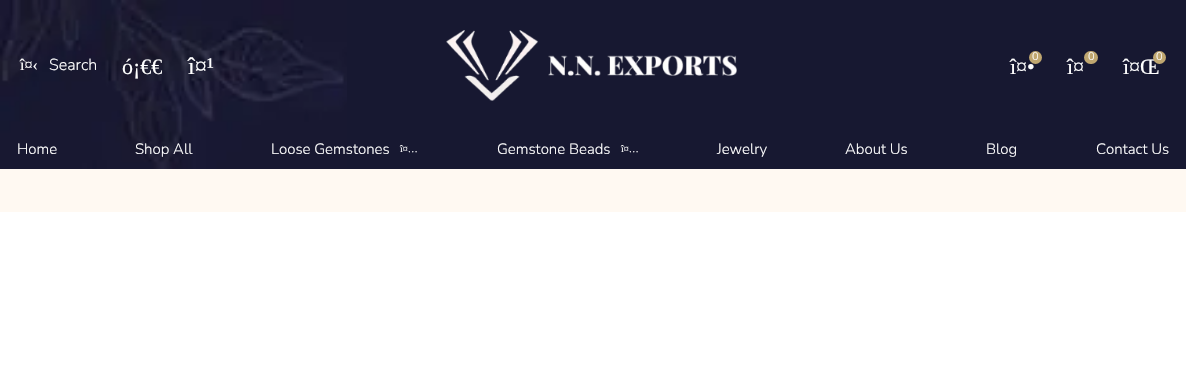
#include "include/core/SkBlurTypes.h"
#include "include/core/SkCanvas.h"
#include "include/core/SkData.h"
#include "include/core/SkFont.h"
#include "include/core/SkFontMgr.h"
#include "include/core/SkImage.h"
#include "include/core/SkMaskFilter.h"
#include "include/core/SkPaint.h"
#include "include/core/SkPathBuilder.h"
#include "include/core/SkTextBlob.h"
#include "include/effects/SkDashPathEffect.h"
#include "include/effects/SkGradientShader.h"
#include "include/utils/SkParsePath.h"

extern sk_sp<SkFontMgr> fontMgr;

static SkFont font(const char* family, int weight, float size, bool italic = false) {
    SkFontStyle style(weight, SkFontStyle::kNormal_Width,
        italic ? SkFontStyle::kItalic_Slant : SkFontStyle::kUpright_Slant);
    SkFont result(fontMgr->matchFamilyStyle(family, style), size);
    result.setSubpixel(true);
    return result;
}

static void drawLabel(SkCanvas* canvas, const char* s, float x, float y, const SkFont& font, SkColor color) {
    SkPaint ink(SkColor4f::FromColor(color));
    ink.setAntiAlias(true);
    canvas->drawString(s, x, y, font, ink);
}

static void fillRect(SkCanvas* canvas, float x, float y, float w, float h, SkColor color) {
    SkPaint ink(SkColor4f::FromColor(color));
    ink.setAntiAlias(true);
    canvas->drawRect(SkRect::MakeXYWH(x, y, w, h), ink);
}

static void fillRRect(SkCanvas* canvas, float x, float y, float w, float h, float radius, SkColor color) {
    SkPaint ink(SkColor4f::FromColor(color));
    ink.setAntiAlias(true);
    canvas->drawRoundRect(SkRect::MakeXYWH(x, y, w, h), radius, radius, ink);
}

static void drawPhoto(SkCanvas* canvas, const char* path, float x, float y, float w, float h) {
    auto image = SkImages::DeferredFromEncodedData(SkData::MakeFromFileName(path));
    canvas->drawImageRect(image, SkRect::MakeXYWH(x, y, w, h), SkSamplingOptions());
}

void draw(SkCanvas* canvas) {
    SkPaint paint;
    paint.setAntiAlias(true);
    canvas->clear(0xFFFFFFFF);
    fillRect(canvas, 347, 0, 839, 169, 0xFF171831);
    drawPhoto(canvas, "assets/img1.png", 0, 0, 347, 169);
    SkFont font1 = font("Liberation Serif", 400, 16);
    drawLabel(canvas, "î¤‹", 20, 70, font1, 0xFFFFFFFF);
    SkFont font2 = font("Nunito", 300, 16);
    drawLabel(canvas, "Search", 49, 70, font2, 0xFFFFFFFF);
    SkFont font3 = font("Liberation Serif", 400, 22);
    drawLabel(canvas, "ó¡€€", 122, 74, font3, 0xFFFFFFFF);
    SkFont font4 = font("Liberation Serif", 400, 24);
    drawLabel(canvas, "î¤¹", 188, 74, font4, 0xFFFFFFFF);
    drawPhoto(canvas, "assets/img2.png", 446, 30, 291, 71);
    drawLabel(canvas, "î¤•", 1010, 74, font3, 0xFFFFFFFF);
    paint.setColor(0xFFC0A770);
    canvas->drawCircle(1035.5f, 57.5f, 6.5f, paint);
    SkFont font5 = font("Nunito", 300, 11);
    drawLabel(canvas, "0", 1032, 60, font5, 0xFFFFFFFF);
    fillRRect(canvas, 1084, 51, 14, 13, 6.5f, 0xFFC0A770);
    drawLabel(canvas, "0", 1088, 60, font5, 0xFFFFFFFF);
    drawLabel(canvas, "î¤", 1067, 74, font3, 0xFFFFFFFF);
    drawLabel(canvas, "î¤Œ", 1123, 74, font3, 0xFFFFFFFF);
    canvas->drawCircle(1159.5f, 57.5f, 6.5f, paint);
    drawLabel(canvas, "0", 1156, 60, font5, 0xFFFFFFFF);
    SkFont font6 = font("Nunito", 300, 15);
    drawLabel(canvas, "Home", 17, 154, font6, 0xFFFFFFFF);
    drawLabel(canvas, "Shop All", 135, 154, font6, 0xFFFFFFFF);
    drawLabel(canvas, "Loose Gemstones", 271, 154, font6, 0xFFFFFFFF);
    SkFont font7 = font("Liberation Serif", 400, 10);
    drawLabel(canvas, "î¤…", 400, 152, font7, 0xFFFFFFFF);
    drawLabel(canvas, "Gemstone Beads", 497, 154, font6, 0xFFFFFFFF);
    drawLabel(canvas, "î¤…", 621, 152, font7, 0xFFFFFFFF);
    drawLabel(canvas, "Jewelry", 717, 154, font6, 0xFFFFFFFF);
    drawLabel(canvas, "About Us", 845, 154, font6, 0xFFFFFFFF);
    drawLabel(canvas, "Blog", 986, 154, font6, 0xFFFFFFFF);
    drawLabel(canvas, "Contact Us", 1096, 154, font6, 0xFFFFFFFF);
    fillRect(canvas, 0, 169, 1186, 43, 0xFFFFF9F2);
}
